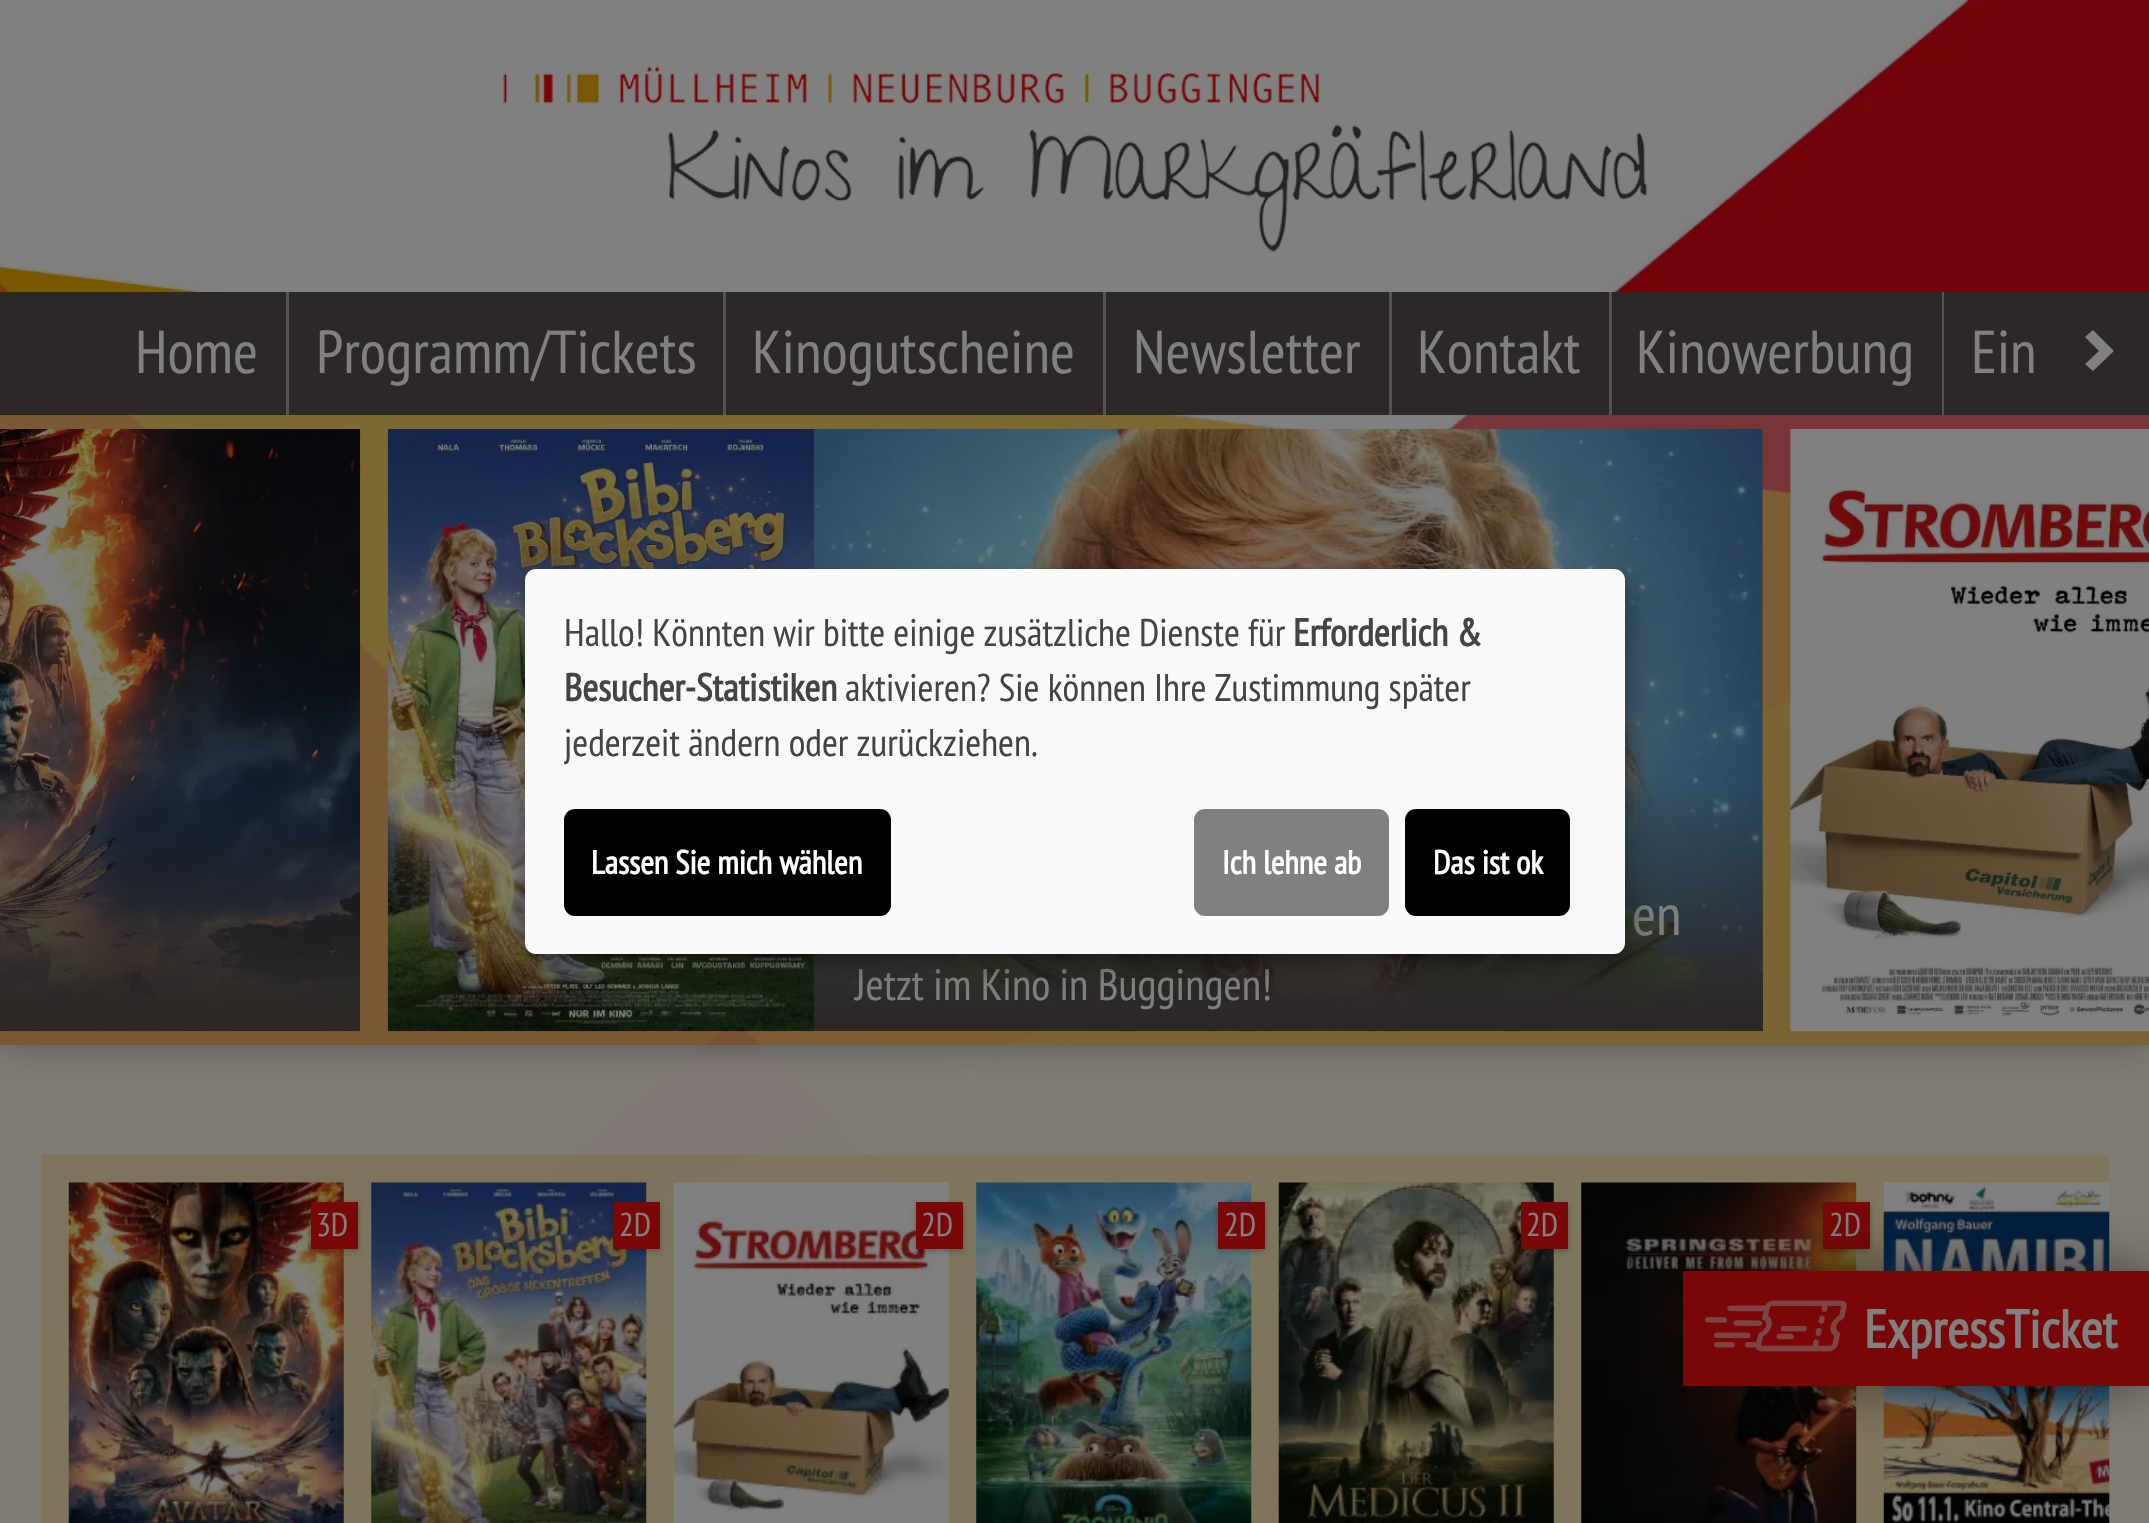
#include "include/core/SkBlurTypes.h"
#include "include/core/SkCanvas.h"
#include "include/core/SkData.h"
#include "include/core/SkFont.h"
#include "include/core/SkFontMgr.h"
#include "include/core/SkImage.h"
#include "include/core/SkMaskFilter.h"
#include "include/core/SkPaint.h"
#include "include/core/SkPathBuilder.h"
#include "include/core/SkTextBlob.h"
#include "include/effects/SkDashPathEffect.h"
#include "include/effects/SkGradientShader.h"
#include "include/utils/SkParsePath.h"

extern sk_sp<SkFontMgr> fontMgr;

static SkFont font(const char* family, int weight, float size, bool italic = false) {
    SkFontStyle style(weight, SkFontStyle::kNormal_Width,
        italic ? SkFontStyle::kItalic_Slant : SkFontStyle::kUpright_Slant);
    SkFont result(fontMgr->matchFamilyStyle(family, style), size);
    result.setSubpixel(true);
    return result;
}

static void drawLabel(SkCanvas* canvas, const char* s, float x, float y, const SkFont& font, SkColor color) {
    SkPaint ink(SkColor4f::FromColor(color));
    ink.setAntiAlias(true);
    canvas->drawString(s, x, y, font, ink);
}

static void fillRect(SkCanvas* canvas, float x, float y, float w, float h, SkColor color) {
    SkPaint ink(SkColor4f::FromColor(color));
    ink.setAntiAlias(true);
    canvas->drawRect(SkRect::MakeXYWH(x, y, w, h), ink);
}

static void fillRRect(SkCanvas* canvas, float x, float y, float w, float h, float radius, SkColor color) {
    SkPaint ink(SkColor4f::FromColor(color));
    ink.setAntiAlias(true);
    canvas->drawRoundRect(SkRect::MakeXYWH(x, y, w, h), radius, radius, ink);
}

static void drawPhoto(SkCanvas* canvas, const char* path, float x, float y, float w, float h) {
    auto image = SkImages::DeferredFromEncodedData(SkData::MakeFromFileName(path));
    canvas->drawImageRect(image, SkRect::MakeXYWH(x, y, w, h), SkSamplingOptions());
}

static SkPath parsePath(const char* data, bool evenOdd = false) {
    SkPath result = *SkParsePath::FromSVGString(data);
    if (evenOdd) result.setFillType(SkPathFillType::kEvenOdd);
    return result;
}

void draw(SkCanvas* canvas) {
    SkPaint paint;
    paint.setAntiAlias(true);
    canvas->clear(0xFF7A5800);
    drawPhoto(canvas, "assets/img1.png", 0, 0, 2149, 1329);
    drawPhoto(canvas, "assets/img2.png", 503, 66, 1145, 187);
    fillRect(canvas, 0, 1045, 2149, 478, 0xE6808080);
    canvas->save();
    canvas->clipPath(parsePath("M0 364H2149V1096H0ZM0 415H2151V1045H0Z", true), true);
    paint.setColor(0x4D000000);
    paint.setMaskFilter(SkMaskFilter::MakeBlur(kNormal_SkBlurStyle, 16.5f));
    canvas->drawRect(SkRect::MakeXYWH(0, 415, 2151, 630), paint);
    paint.setMaskFilter(nullptr);
    canvas->restore();
    fillRect(canvas, 0, 292, 2149, 123, 0xFF2B2827);
    fillRect(canvas, 286, 292, 3, 123, 0xFF565453);
    SkFont font1 = font("PT Sans Narrow", 400, 60.5f);
    drawLabel(canvas, "Home", 135, 373, font1, 0xFF808080);
    fillRect(canvas, 723, 292, 3, 123, 0xFF565453);
    drawLabel(canvas, "Programm/Tickets", 316, 373, font1, 0xFF808080);
    fillRect(canvas, 1103, 292, 3, 123, 0xFF565453);
    drawLabel(canvas, "Kinogutscheine", 752, 373, font1, 0xFF808080);
    fillRect(canvas, 1389, 292, 3, 123, 0xFF565453);
    drawLabel(canvas, "Newsletter", 1133, 373, font1, 0xFF808080);
    fillRect(canvas, 1609, 292, 3, 123, 0xFF565453);
    drawLabel(canvas, "Kontakt", 1417, 373, font1, 0xFF808080);
    fillRect(canvas, 1942, 292, 2, 123, 0xFF565453);
    drawLabel(canvas, "Kinowerbung", 1636, 373, font1, 0xFF808080);
    drawLabel(canvas, "Ein", 1971, 373, font1, 0xFF808080);
    paint.setColor(0xFF808080);
    canvas->drawPath(parsePath("M2114 351L2093 371L2085 364L2099 351L2085 337L2093 330Z"), paint);
    fillRect(canvas, 0, 415, 2149, 630, 0x66808080);
    drawPhoto(canvas, "assets/img3.png", 0, 429, 361, 603);
    drawPhoto(canvas, "assets/img4.png", 387, 429, 427, 603);
    drawPhoto(canvas, "assets/img5.png", 813, 429, 950, 603);
    {
        const SkColor colors[] = {0x002B2827, 0xFF2B2827};
        const float stops[] = {0.59f, 0.96f};
        const SkPoint ends[] = {{1288, 429}, {1288, 1031}};
        paint.setShader(SkGradientShader::MakeLinear(ends, colors, stops, 2, SkTileMode::kClamp));
        paint.setAlpha(255);
    }
    canvas->drawRect(SkRect::MakeXYWH(814, 791, 949, 240), paint);
    SkFont font2 = font("PT Sans Narrow", 400, 58);
    drawLabel(canvas, "en", 1632, 935, font2, 0xFF808080);
    SkFont font3 = font("PT Sans Narrow", 400, 44);
    drawLabel(canvas, "Jetzt im Kino in Buggingen!", 855, 1000, font3, 0xFF808080);
    drawPhoto(canvas, "assets/img6.png", 1790, 429, 359, 603);
    fillRect(canvas, 41, 1155, 2068, 368, 0x337A5800);
    drawPhoto(canvas, "assets/img7.png", 68, 1182, 276, 341);
    paint.setShader(nullptr);
    paint.setColor(0x40000000);
    paint.setMaskFilter(SkMaskFilter::MakeBlur(kNormal_SkBlurStyle, 3));
    canvas->drawRect(SkRect::MakeXYWH(311, 1205, 47, 46), paint);
    paint.setMaskFilter(nullptr);
    fillRect(canvas, 311, 1202, 47, 47, 0xFF790707);
    SkFont font4 = font("PT Sans Narrow", 400, 33);
    drawLabel(canvas, "3D", 316, 1236, font4, 0xFF808080);
    drawPhoto(canvas, "assets/img8.png", 371, 1182, 276, 341);
    paint.setMaskFilter(SkMaskFilter::MakeBlur(kNormal_SkBlurStyle, 3));
    canvas->drawRect(SkRect::MakeXYWH(613, 1205, 47, 46), paint);
    paint.setMaskFilter(nullptr);
    fillRect(canvas, 613, 1202, 47, 47, 0xFF790707);
    drawLabel(canvas, "2D", 619, 1236, font4, 0xFF808080);
    drawPhoto(canvas, "assets/img9.png", 673, 1182, 276, 341);
    paint.setMaskFilter(SkMaskFilter::MakeBlur(kNormal_SkBlurStyle, 3));
    canvas->drawRect(SkRect::MakeXYWH(916, 1205, 47, 46), paint);
    paint.setMaskFilter(nullptr);
    fillRect(canvas, 916, 1202, 47, 47, 0xFF790707);
    drawLabel(canvas, "2D", 921, 1236, font4, 0xFF808080);
    drawPhoto(canvas, "assets/img10.png", 976, 1182, 276, 341);
    paint.setMaskFilter(SkMaskFilter::MakeBlur(kNormal_SkBlurStyle, 3));
    canvas->drawRect(SkRect::MakeXYWH(1218, 1205, 47, 46), paint);
    paint.setMaskFilter(nullptr);
    fillRect(canvas, 1218, 1202, 47, 47, 0xFF790707);
    drawLabel(canvas, "2D", 1224, 1236, font4, 0xFF808080);
    drawPhoto(canvas, "assets/img11.png", 1278, 1182, 276, 341);
    paint.setMaskFilter(SkMaskFilter::MakeBlur(kNormal_SkBlurStyle, 3));
    canvas->drawRect(SkRect::MakeXYWH(1521, 1205, 47, 46), paint);
    paint.setMaskFilter(nullptr);
    fillRect(canvas, 1521, 1202, 47, 47, 0xFF790707);
    drawLabel(canvas, "2D", 1526, 1236, font4, 0xFF808080);
    drawPhoto(canvas, "assets/img12.png", 1581, 1182, 276, 341);
    paint.setMaskFilter(SkMaskFilter::MakeBlur(kNormal_SkBlurStyle, 3));
    canvas->drawRect(SkRect::MakeXYWH(1823, 1205, 47, 46), paint);
    paint.setMaskFilter(nullptr);
    fillRect(canvas, 1823, 1202, 47, 47, 0xFF790707);
    drawLabel(canvas, "2D", 1829, 1236, font4, 0xFF808080);
    drawPhoto(canvas, "assets/img13.png", 1883, 1182, 227, 341);
    paint.setColor(0x30000000);
    paint.setMaskFilter(SkMaskFilter::MakeBlur(kNormal_SkBlurStyle, 14));
    canvas->drawRoundRect(SkRect::MakeXYWH(539, 583, 1100, 385), 11, 11, paint);
    paint.setMaskFilter(nullptr);
    paint.setColor(0x33000000);
    paint.setMaskFilter(SkMaskFilter::MakeBlur(kNormal_SkBlurStyle, 8));
    canvas->drawRoundRect(SkRect::MakeXYWH(525, 580, 1100, 385), 11, 11, paint);
    paint.setMaskFilter(nullptr);
    fillRRect(canvas, 525, 569, 1100, 385, 11, 0xFFFAFAFA);
    SkFont font5 = font("PT Sans Narrow", 400, 38.5f);
    drawLabel(canvas, "Hallo! Könnten wir bitte einige zusätzliche Dienste für", 564, 646, font5, 0xFF444444);
    SkFont font6 = font("PT Sans Narrow", 700, 38.5f);
    drawLabel(canvas, "Erforderlich &", 1293, 646, font6, 0xFF444444);
    drawLabel(canvas, "Besucher-Statistiken", 564, 701, font6, 0xFF444444);
    drawLabel(canvas, "aktivieren? Sie können Ihre Zustimmung später", 845, 701, font5, 0xFF444444);
    drawLabel(canvas, "jederzeit ändern oder zurückziehen.", 564, 756, font5, 0xFF444444);
    fillRRect(canvas, 564, 809, 327, 107, 11, 0xFF000000);
    SkFont font7 = font("PT Sans Narrow", 700, 33);
    drawLabel(canvas, "Lassen Sie mich wählen", 591, 874, font7, 0xFFFFFFFF);
    fillRRect(canvas, 1194, 809, 195, 107, 11, 0xFF808080);
    drawLabel(canvas, "Ich lehne ab", 1222, 874, font7, 0xFFFFFFFF);
    fillRRect(canvas, 1405, 809, 165, 107, 11, 0xFF000000);
    drawLabel(canvas, "Das ist ok", 1433, 874, font7, 0xFFFFFFFF);
    paint.setColor(0x80000000);
    paint.setMaskFilter(SkMaskFilter::MakeBlur(kNormal_SkBlurStyle, 27.5f));
    canvas->drawRect(SkRect::MakeXYWH(1683, 1271, 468, 115), paint);
    paint.setMaskFilter(nullptr);
    fillRect(canvas, 1683, 1271, 466, 115, 0xFF790707);
    drawPhoto(canvas, "assets/img14.png", 1705, 1300, 142, 52);
    SkFont font8 = font("PT Sans Narrow", 700, 53.5f);
    drawLabel(canvas, "ExpressTicket", 1864, 1348, font8, 0xFF808080);
}
